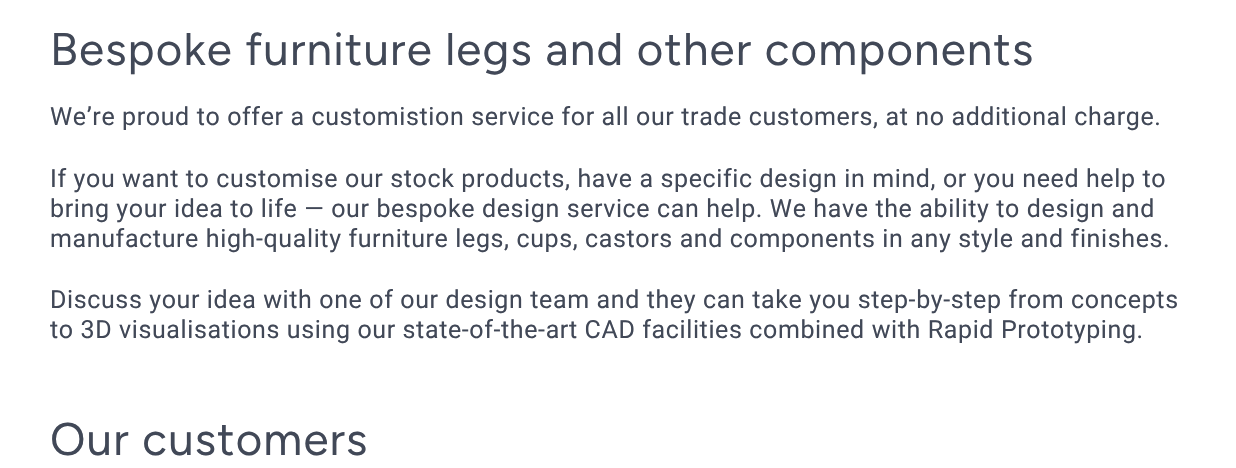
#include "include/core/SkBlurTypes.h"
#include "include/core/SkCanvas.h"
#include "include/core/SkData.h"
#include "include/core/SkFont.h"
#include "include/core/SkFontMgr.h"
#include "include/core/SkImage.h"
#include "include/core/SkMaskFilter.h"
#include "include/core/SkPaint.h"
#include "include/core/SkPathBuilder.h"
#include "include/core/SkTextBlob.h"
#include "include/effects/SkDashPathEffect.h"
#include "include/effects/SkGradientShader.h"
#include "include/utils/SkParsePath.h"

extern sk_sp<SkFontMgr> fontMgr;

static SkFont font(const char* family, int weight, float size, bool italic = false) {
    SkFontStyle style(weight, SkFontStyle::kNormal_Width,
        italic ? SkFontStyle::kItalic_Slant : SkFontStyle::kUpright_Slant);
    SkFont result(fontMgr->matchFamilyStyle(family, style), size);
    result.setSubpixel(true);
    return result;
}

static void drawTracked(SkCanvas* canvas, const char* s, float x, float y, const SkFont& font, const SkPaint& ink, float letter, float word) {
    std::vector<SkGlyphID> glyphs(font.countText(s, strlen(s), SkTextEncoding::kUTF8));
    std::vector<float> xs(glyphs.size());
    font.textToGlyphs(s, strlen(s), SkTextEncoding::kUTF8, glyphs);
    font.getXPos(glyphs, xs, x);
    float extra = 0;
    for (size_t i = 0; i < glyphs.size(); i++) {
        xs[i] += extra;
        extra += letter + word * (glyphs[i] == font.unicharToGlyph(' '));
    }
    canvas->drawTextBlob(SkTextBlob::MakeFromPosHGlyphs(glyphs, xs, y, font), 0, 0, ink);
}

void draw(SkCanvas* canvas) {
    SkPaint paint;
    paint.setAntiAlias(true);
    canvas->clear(0xFFFFFFFF);
    SkFont font1 = font("Figtree", 400, 45.7f);
    paint.setColor(0xFF414857);
    drawTracked(canvas, "Bespoke furniture legs and other components", 50, 65, font1, paint, 1.15f, 0);
    SkFont font2 = font("Roboto", 400, 25);
    drawTracked(canvas, "We’re proud to offer a customistion service for all our trade customers, at no additional charge.", 50, 125, font2, paint, 0.62f, 0);
    drawTracked(canvas, "If you want to customise our stock products, have a specific design in mind, or you need help to", 50, 187, font2, paint, 0.62f, 0);
    drawTracked(canvas, "bring your idea to life — our bespoke design service can help. We have the ability to design and", 50, 217, font2, paint, 0.62f, 0);
    drawTracked(canvas, "manufacture high-quality furniture legs, cups, castors and components in any style and finishes.", 50, 247, font2, paint, 0.62f, 0);
    drawTracked(canvas, "Discuss your idea with one of our design team and they can take you step-by-step from concepts", 50, 308, font2, paint, 0.62f, 0);
    drawTracked(canvas, "to 3D visualisations using our state-of-the-art CAD facilities combined with Rapid Prototyping.", 50, 338, font2, paint, 0.62f, 0);
    drawTracked(canvas, "Our customers", 50, 455, font1, paint, 1.15f, 0);
}
